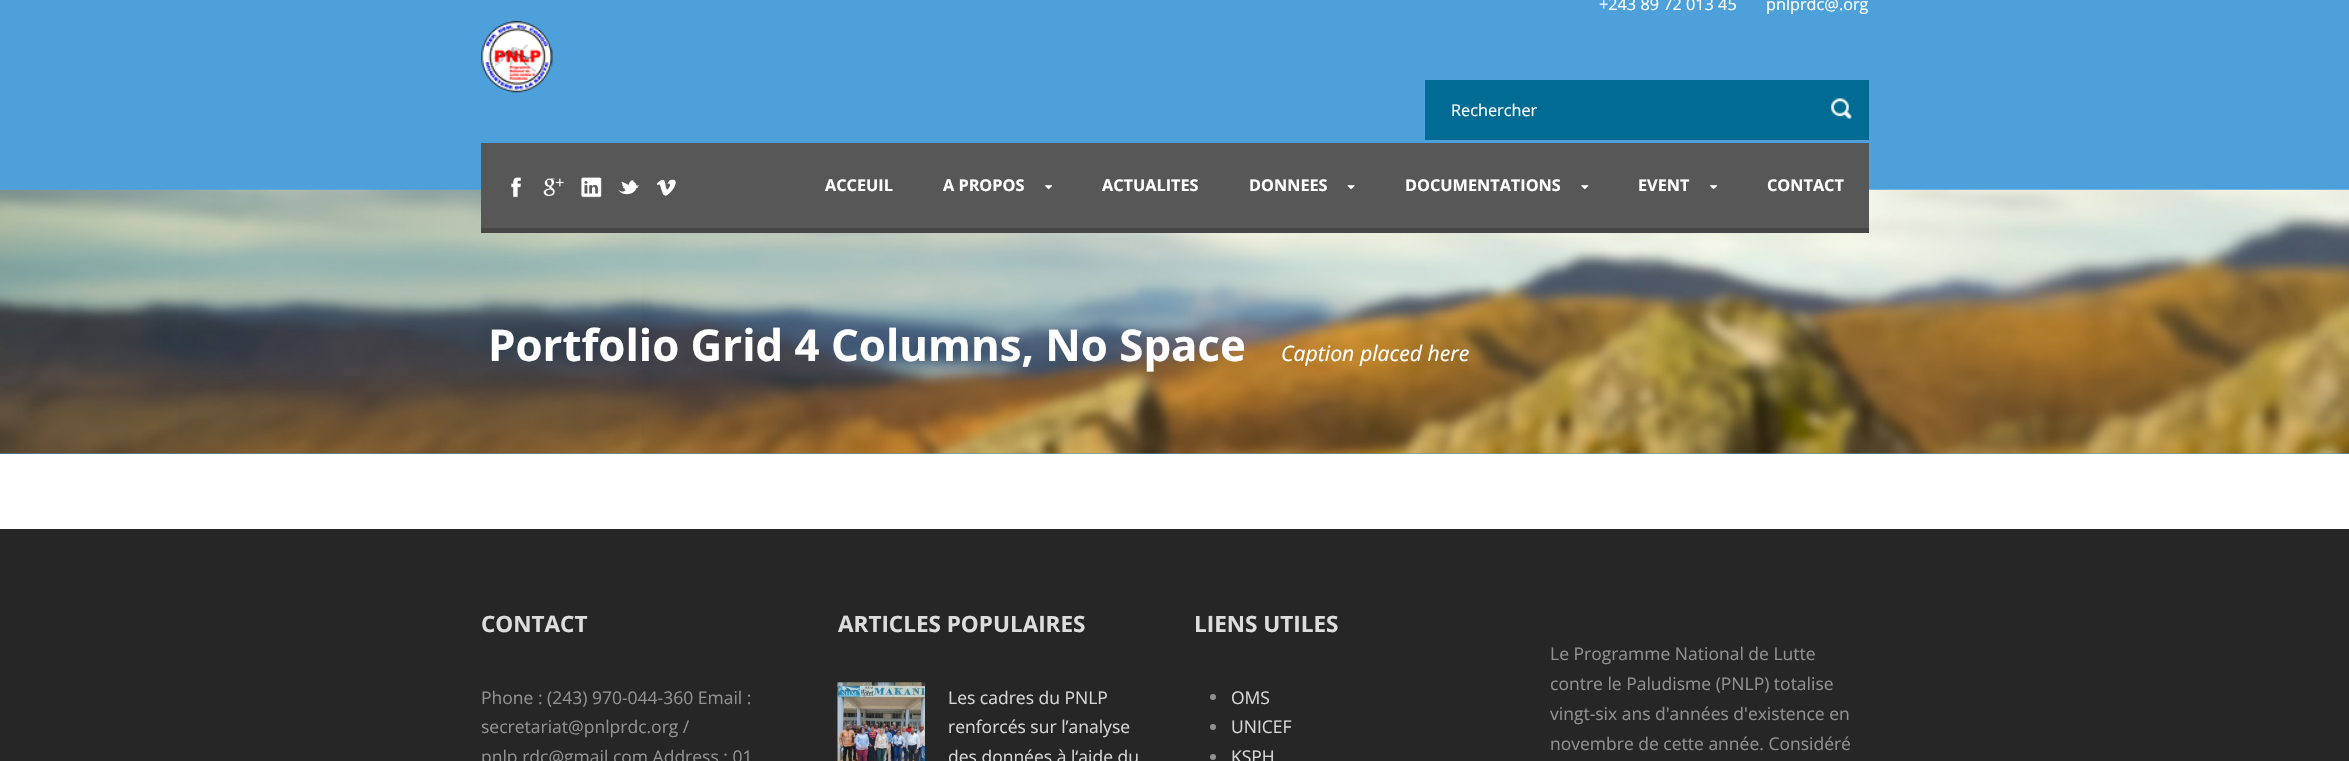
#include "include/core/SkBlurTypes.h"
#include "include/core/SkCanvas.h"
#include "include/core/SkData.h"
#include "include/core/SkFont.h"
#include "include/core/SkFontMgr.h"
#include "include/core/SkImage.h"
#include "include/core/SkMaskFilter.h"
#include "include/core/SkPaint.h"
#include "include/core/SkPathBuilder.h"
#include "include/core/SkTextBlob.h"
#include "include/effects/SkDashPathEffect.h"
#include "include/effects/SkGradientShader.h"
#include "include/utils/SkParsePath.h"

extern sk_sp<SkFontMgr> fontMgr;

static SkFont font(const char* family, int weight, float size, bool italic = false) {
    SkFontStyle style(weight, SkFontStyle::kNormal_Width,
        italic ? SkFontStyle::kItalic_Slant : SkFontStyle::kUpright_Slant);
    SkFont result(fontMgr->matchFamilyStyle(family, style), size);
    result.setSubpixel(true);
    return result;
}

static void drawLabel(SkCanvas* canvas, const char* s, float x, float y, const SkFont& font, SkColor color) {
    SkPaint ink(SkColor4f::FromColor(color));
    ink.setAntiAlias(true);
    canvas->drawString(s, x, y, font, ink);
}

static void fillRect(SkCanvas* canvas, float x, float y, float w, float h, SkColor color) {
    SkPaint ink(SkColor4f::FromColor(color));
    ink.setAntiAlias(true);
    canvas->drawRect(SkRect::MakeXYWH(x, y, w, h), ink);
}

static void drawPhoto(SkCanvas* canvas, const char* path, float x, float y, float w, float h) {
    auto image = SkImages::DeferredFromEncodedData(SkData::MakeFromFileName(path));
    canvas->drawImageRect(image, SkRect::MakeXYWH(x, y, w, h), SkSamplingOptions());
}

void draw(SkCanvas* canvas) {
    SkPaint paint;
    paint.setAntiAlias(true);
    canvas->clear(0xFFFFFFFF);
    fillRect(canvas, 0, 0, 2349, 454, 0xFF4EA0DB);
    SkFont font1 = font("Open Sans", 400, 16.25f);
    drawLabel(canvas, "+243 89 72 013 45", 1599, 10, font1, 0xFFFFFFFF);
    drawLabel(canvas, "pnlprdc@.org", 1766, 10, font1, 0xFFFFFFFF);
    drawPhoto(canvas, "assets/img1.png", 481, 21, 72, 72);
    fillRect(canvas, 1425, 80, 444, 60, 0xFF006C93);
    drawLabel(canvas, "Rechercher", 1451, 116, font1, 0xFFFFFFFF);
    drawPhoto(canvas, "assets/img2.png", 1831, 98, 21, 21);
    drawPhoto(canvas, "assets/img11.png", 0, 189, 2349, 265);
    fillRect(canvas, 481, 143, 1388, 85, 0xFF575757);
    fillRect(canvas, 481, 228, 1388, 5, 0xFF474747);
    drawPhoto(canvas, "assets/img3.png", 511, 177, 10, 21);
    drawPhoto(canvas, "assets/img4.png", 543, 178, 21, 18);
    drawPhoto(canvas, "assets/img5.png", 581, 177, 21, 21);
    drawPhoto(canvas, "assets/img6.png", 618, 180, 21, 15);
    drawPhoto(canvas, "assets/img7.png", 656, 179, 20, 17);
    SkFont font2 = font("Open Sans", 700, 16.25f);
    drawLabel(canvas, "ACCEUIL", 825, 191, font2, 0xFFFFFFFF);
    drawLabel(canvas, "A PROPOS", 943, 191, font2, 0xFFFFFFFF);
    drawPhoto(canvas, "assets/img8.png", 1045, 185, 8, 5);
    drawLabel(canvas, "ACTUALITES", 1102, 191, font2, 0xFFFFFFFF);
    drawLabel(canvas, "DONNEES", 1249, 191, font2, 0xFFFFFFFF);
    drawPhoto(canvas, "assets/img9.png", 1347, 185, 8, 5);
    drawLabel(canvas, "DOCUMENTATIONS", 1405, 191, font2, 0xFFFFFFFF);
    drawPhoto(canvas, "assets/img10.png", 1581, 185, 8, 5);
    drawLabel(canvas, "EVENT", 1638, 191, font2, 0xFFFFFFFF);
    drawPhoto(canvas, "assets/img8.png", 1710, 185, 8, 5);
    drawLabel(canvas, "CONTACT", 1767, 191, font2, 0xFFFFFFFF);
    SkFont font3 = font("Open Sans", 700, 43.75f);
    drawLabel(canvas, "Portfolio Grid 4 Columns, No Space", 488, 361, font3, 0xFFFFFFFF);
    SkFont font4 = font("Open Sans", 400, 21.25f, true);
    drawLabel(canvas, "Caption placed here", 1281, 361, font4, 0xFFFFFFFF);
    fillRect(canvas, 0, 529, 2349, 232, 0xFF262626);
    SkFont font5 = font("Open Sans", 700, 22.5f);
    drawLabel(canvas, "CONTACT", 481, 632, font5, 0xFFDDDDDD);
    SkFont font6 = font("Open Sans", 400, 17.5f);
    drawLabel(canvas, "Phone : (243) 970-044-360 Email :", 481, 704, font6, 0xFF919191);
    drawLabel(canvas, "secretariat@pnlprdc.org /", 481, 733, font6, 0xFF919191);
    drawLabel(canvas, "pnlp.rdc@gmail.com Address : 01", 481, 763, font6, 0xFF919191);
    drawLabel(canvas, "ARTICLES POPULAIRES", 838, 632, font5, 0xFFDDDDDD);
    drawPhoto(canvas, "assets/img12.png", 837, 682, 88, 79);
    drawLabel(canvas, "Les cadres du PNLP", 948, 704, font6, 0xFFD6D6D6);
    drawLabel(canvas, "renforcés sur l’analyse", 948, 733, font6, 0xFFD6D6D6);
    drawLabel(canvas, "des données à l‘aide du", 948, 763, font6, 0xFFD6D6D6);
    drawLabel(canvas, "LIENS UTILES", 1194, 632, font5, 0xFFDDDDDD);
    paint.setColor(0xFF919191);
    canvas->drawCircle(1213, 697, 3, paint);
    drawLabel(canvas, "OMS", 1231, 704, font6, 0xFFD6D6D6);
    canvas->drawCircle(1213, 727, 3, paint);
    drawLabel(canvas, "UNICEF", 1231, 733, font6, 0xFFD6D6D6);
    canvas->drawCircle(1213, 757, 3, paint);
    drawLabel(canvas, "KSPH", 1231, 763, font6, 0xFFD6D6D6);
    drawLabel(canvas, "Le Programme National de Lutte", 1550, 660, font6, 0xFF919191);
    drawLabel(canvas, "contre le Paludisme (PNLP) totalise", 1550, 690, font6, 0xFF919191);
    drawLabel(canvas, "vingt-six ans d'années d'existence en", 1550, 720, font6, 0xFF919191);
    drawLabel(canvas, "novembre de cette année. Considéré", 1550, 750, font6, 0xFF919191);
}
